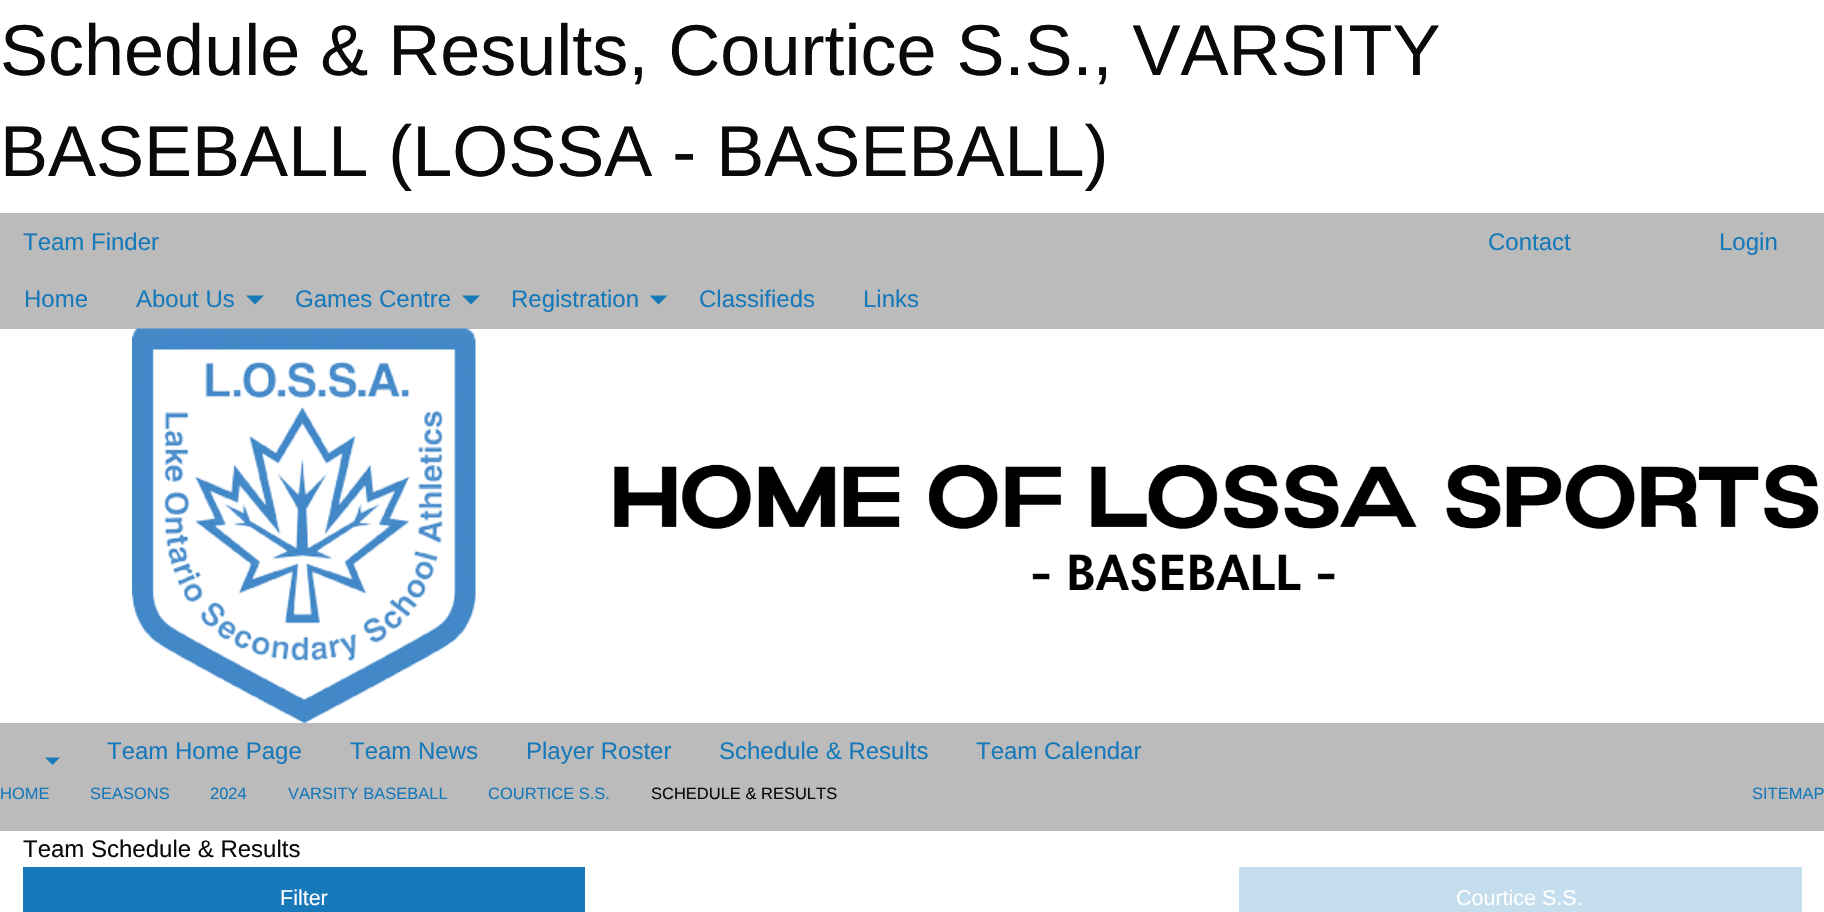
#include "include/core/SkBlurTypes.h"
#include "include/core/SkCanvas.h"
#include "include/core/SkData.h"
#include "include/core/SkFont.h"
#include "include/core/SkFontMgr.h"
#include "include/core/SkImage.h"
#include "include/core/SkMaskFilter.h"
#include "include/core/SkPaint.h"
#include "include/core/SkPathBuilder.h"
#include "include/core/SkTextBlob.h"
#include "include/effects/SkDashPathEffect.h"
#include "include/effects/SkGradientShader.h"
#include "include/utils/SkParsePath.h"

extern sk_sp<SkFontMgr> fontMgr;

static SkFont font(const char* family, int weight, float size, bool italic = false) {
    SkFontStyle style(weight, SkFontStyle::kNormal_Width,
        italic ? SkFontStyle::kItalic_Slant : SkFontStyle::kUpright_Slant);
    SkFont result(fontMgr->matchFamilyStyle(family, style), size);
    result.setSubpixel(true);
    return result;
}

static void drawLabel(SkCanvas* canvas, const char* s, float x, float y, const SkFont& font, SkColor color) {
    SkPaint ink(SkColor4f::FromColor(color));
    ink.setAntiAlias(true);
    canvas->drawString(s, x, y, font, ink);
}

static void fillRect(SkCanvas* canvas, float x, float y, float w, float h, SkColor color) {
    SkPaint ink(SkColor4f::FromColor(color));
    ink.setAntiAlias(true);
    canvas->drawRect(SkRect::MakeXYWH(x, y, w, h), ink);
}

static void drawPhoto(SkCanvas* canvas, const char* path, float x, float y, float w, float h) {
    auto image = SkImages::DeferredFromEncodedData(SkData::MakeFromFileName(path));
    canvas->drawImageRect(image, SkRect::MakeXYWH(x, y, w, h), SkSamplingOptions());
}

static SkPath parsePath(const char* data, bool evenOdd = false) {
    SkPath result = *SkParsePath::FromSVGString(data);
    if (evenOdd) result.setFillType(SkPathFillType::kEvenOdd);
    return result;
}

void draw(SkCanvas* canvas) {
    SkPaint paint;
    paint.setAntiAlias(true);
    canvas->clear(0xFFFFFFFF);
    SkFont font1 = font("Liberation Sans", 400, 72);
    drawLabel(canvas, "Schedule & Results, Courtice S.S., VARSITY", 0, 75, font1, 0xFF0A0A0A);
    drawLabel(canvas, "BASEBALL (LOSSA - BASEBALL)", 0, 176, font1, 0xFF0A0A0A);
    fillRect(canvas, 0, 213, 1824, 618, 0xFFBBBBBB);
    SkFont font2 = font("Liberation Sans", 400, 24);
    drawLabel(canvas, "Team Finder", 23, 250, font2, 0xFF1779BA);
    drawLabel(canvas, "Contact", 1488, 250, font2, 0xFF1779BA);
    drawLabel(canvas, "Login", 1719, 250, font2, 0xFF1779BA);
    drawLabel(canvas, "Home", 24, 307, font2, 0xFF1779BA);
    drawLabel(canvas, "About Us", 136, 307, font2, 0xFF1779BA);
    paint.setColor(0xFF1779BA);
    canvas->drawPath(parsePath("M246 295.5H264L255 304.5Z"), paint);
    drawLabel(canvas, "Games Centre", 295, 307, font2, 0xFF1779BA);
    canvas->drawPath(parsePath("M462 295.5H480L471 304.5Z"), paint);
    drawLabel(canvas, "Registration", 511, 307, font2, 0xFF1779BA);
    canvas->drawPath(parsePath("M649.5 295.5H667.5L658.5 304.5Z"), paint);
    drawLabel(canvas, "Classifieds", 699, 307, font2, 0xFF1779BA);
    drawLabel(canvas, "Links", 863, 307, font2, 0xFF1779BA);
    fillRect(canvas, 0, 329, 1824, 394, 0xFFFFFFFF);
    drawPhoto(canvas, "assets/img1.png", 132, 328, 344, 395);
    drawPhoto(canvas, "assets/img2.png", 614, 464, 1205, 128);
    canvas->drawPath(parsePath("M45 757.5H60L52.5 765Z"), paint);
    drawLabel(canvas, "Team Home Page", 107, 759, font2, 0xFF1779BA);
    drawLabel(canvas, "Team News", 350, 759, font2, 0xFF1779BA);
    drawLabel(canvas, "Player Roster", 526, 759, font2, 0xFF1779BA);
    drawLabel(canvas, "Schedule & Results", 719, 759, font2, 0xFF1779BA);
    drawLabel(canvas, "Team Calendar", 976, 759, font2, 0xFF1779BA);
    SkFont font3 = font("Liberation Sans", 400, 16.5f);
    drawLabel(canvas, "HOME", 0, 799, font3, 0xFF1779BA);
    drawLabel(canvas, "SEASONS", 90, 799, font3, 0xFF1779BA);
    drawLabel(canvas, "2024", 210, 799, font3, 0xFF1779BA);
    drawLabel(canvas, "VARSITY BASEBALL", 288, 799, font3, 0xFF1779BA);
    drawLabel(canvas, "COURTICE S.S.", 488, 799, font3, 0xFF1779BA);
    drawLabel(canvas, "SCHEDULE & RESULTS", 651, 799, font3, 0xFF0A0A0A);
    drawLabel(canvas, "SITEMAP", 1752, 799, font3, 0xFF1779BA);
    drawLabel(canvas, "Team Schedule & Results", 23, 857, font2, 0xFF0A0A0A);
    fillRect(canvas, 23, 867, 562, 45, 0xFF1779BA);
    SkFont font4 = font("Liberation Sans", 400, 21.5f);
    drawLabel(canvas, "Filter", 280, 905, font4, 0xFFFEFEFE);
    fillRect(canvas, 1239, 867, 563, 45, 0xFFC5DEEE);
    drawLabel(canvas, "Courtice S.S.", 1456, 905, font4, 0xFFFEFEFE);
}
